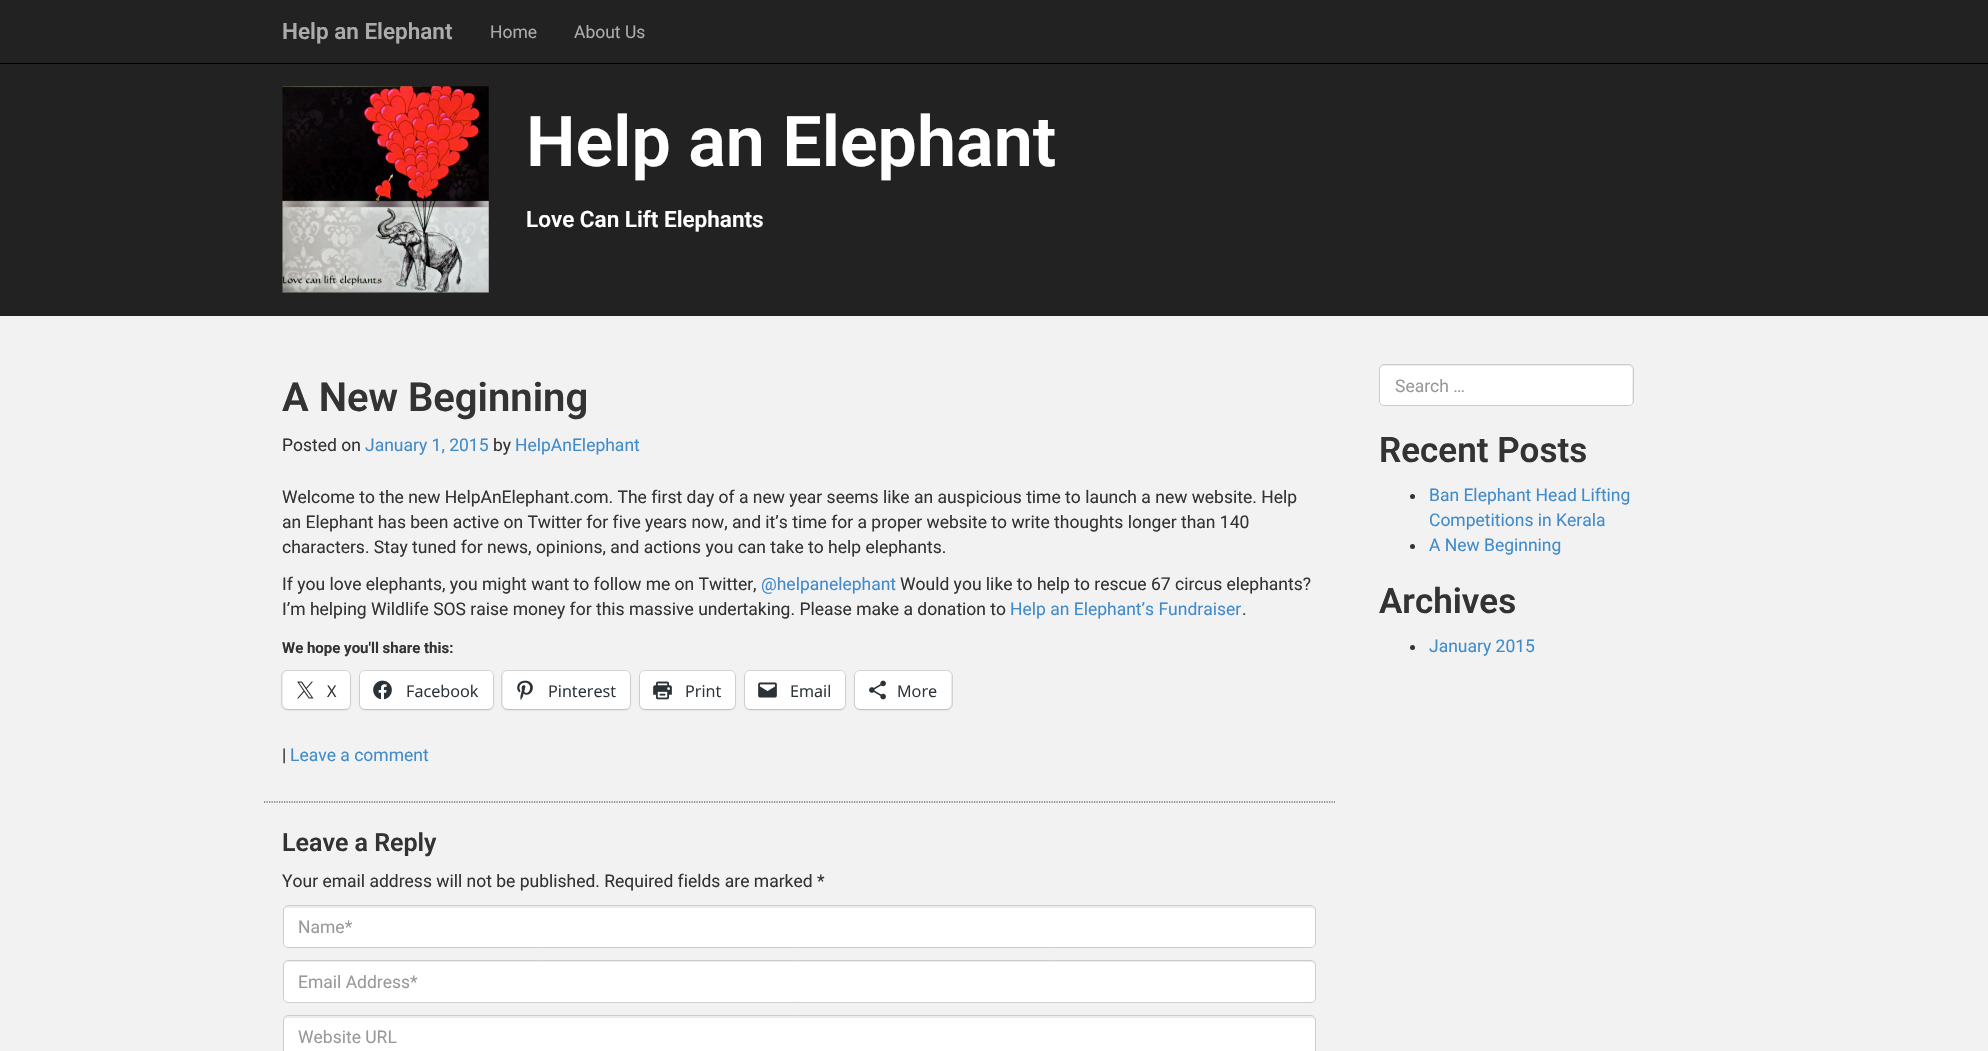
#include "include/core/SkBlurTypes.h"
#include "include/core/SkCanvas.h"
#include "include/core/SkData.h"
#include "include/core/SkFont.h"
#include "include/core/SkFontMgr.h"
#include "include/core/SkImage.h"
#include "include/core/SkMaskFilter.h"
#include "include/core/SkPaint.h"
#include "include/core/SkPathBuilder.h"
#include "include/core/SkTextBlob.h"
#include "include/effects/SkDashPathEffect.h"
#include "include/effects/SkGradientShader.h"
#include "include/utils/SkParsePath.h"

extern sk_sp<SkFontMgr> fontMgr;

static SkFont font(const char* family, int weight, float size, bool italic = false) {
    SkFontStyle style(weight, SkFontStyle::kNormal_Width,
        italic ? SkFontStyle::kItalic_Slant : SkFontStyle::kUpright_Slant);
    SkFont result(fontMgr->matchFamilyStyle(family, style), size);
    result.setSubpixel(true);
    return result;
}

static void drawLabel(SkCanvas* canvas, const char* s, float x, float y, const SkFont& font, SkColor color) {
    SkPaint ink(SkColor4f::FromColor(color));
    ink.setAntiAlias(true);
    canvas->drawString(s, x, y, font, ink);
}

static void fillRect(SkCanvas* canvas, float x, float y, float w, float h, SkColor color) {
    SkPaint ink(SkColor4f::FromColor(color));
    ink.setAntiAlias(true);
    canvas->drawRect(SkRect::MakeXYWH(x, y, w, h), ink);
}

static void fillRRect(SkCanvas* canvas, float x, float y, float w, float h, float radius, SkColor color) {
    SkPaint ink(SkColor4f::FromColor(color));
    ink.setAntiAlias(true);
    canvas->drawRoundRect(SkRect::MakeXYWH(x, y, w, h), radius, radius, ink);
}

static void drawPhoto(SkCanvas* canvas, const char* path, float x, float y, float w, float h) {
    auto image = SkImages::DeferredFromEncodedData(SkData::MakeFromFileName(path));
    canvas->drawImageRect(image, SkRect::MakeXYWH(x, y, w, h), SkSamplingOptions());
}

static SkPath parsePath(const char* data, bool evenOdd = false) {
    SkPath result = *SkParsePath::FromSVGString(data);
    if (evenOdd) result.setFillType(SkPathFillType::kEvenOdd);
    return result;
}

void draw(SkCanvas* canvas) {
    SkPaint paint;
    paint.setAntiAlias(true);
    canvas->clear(0xFFF2F2F2);
    fillRect(canvas, 0, 0, 1988, 63, 0xFF222222);
    fillRect(canvas, 0, 63, 1988, 1, 0xFF000000);
    SkFont font1 = font("Roboto", 600, 22.5f);
    drawLabel(canvas, "Help an Elephant", 282, 39, font1, 0xFFABABAB);
    SkFont font2 = font("Roboto", 400, 17.5f);
    drawLabel(canvas, "Home", 490, 38, font2, 0xFFABABAB);
    drawLabel(canvas, "About Us", 574, 38, font2, 0xFFABABAB);
    fillRect(canvas, 0, 64, 1988, 252, 0xFF222222);
    drawPhoto(canvas, "assets/img1.png", 282, 86, 207, 207);
    SkFont font3 = font("Roboto", 600, 70);
    drawLabel(canvas, "Help an Elephant", 526, 166, font3, 0xFFFFFFFF);
    drawLabel(canvas, "Love Can Lift Elephants", 526, 227, font1, 0xFFFFFFFF);
    SkFont font4 = font("Roboto", 600, 40);
    drawLabel(canvas, "A New Beginning", 282, 411, font4, 0xFF333333);
    drawLabel(canvas, "Posted on", 282, 451, font2, 0xFF333333);
    drawLabel(canvas, "January 1, 2015", 365, 451, font2, 0xFF428BCA);
    drawLabel(canvas, "by", 493, 451, font2, 0xFF333333);
    drawLabel(canvas, "HelpAnElephant", 515, 451, font2, 0xFF428BCA);
    drawLabel(canvas, "Welcome to the new HelpAnElephant.com. The first day of a new year seems like an auspicious time to launch a new website. Help", 282, 503, font2, 0xFF333333);
    drawLabel(canvas, "an Elephant has been active on Twitter for five years now, and it’s time for a proper website to write thoughts longer than 140", 282, 528, font2, 0xFF333333);
    drawLabel(canvas, "characters. Stay tuned for news, opinions, and actions you can take to help elephants.", 282, 553, font2, 0xFF333333);
    drawLabel(canvas, "If you love elephants, you might want to follow me on Twitter,", 282, 590, font2, 0xFF333333);
    drawLabel(canvas, "@helpanelephant", 761, 590, font2, 0xFF428BCA);
    drawLabel(canvas, "Would you like to help to rescue 67 circus elephants?", 900, 590, font2, 0xFF333333);
    drawLabel(canvas, "I’m helping Wildlife SOS raise money for this massive undertaking. Please make a donation to", 282, 615, font2, 0xFF333333);
    drawLabel(canvas, "Help an Elephant’s Fundraiser", 1010, 615, font2, 0xFF428BCA);
    drawLabel(canvas, ".", 1242, 615, font2, 0xFF333333);
    SkFont font5 = font("Roboto", 700, 15);
    drawLabel(canvas, "We hope you'll share this:", 282, 653, font5, 0xFF333333);
    paint.setStroke(true);
    paint.setStrokeWidth(1);
    paint.setColor(0xFFD5D5D5);
    canvas->drawRoundRect(SkRect::MakeXYWH(281.5f, 670.5f, 69, 39), 5.5f, 5.5f, paint);
    paint.setStroke(false);
    paint.setColor(0x1F000000);
    paint.setMaskFilter(SkMaskFilter::MakeBlur(kNormal_SkBlurStyle, 1));
    canvas->drawRoundRect(SkRect::MakeXYWH(283, 673, 67, 37), 5, 5, paint);
    paint.setMaskFilter(nullptr);
    fillRRect(canvas, 283, 671, 67, 38, 5, 0xFFFFFFFF);
    drawPhoto(canvas, "assets/img2.png", 297, 681, 17, 18);
    SkFont font6 = font("Open Sans", 400, 16.25f);
    drawLabel(canvas, "X", 327, 697, font6, 0xFF2C3338);
    paint.setStroke(true);
    paint.setColor(0xFFD5D5D5);
    canvas->drawRoundRect(SkRect::MakeXYWH(359.5f, 670.5f, 134, 39), 5.5f, 5.5f, paint);
    paint.setStroke(false);
    paint.setColor(0x1F000000);
    paint.setMaskFilter(SkMaskFilter::MakeBlur(kNormal_SkBlurStyle, 1));
    canvas->drawRoundRect(SkRect::MakeXYWH(360, 673, 133, 37), 5, 5, paint);
    paint.setMaskFilter(nullptr);
    fillRRect(canvas, 360, 671, 133, 38, 5, 0xFFFFFFFF);
    drawPhoto(canvas, "assets/img3.png", 373, 680, 19, 20);
    drawLabel(canvas, "Facebook", 406, 697, font6, 0xFF2C3338);
    paint.setStroke(true);
    paint.setColor(0xFFD5D5D5);
    canvas->drawRoundRect(SkRect::MakeXYWH(501.5f, 670.5f, 129, 39), 5.5f, 5.5f, paint);
    paint.setStroke(false);
    paint.setColor(0x1F000000);
    paint.setMaskFilter(SkMaskFilter::MakeBlur(kNormal_SkBlurStyle, 1));
    canvas->drawRoundRect(SkRect::MakeXYWH(503, 673, 127, 37), 5, 5, paint);
    paint.setMaskFilter(nullptr);
    fillRRect(canvas, 503, 671, 127, 38, 5, 0xFFFFFFFF);
    drawPhoto(canvas, "assets/img4.png", 517, 680, 16, 20);
    drawLabel(canvas, "Pinterest", 548, 697, font6, 0xFF2C3338);
    paint.setStroke(true);
    paint.setColor(0xFFD5D5D5);
    canvas->drawRoundRect(SkRect::MakeXYWH(639.5f, 670.5f, 96, 39), 5.5f, 5.5f, paint);
    paint.setStroke(false);
    paint.setColor(0x1F000000);
    paint.setMaskFilter(SkMaskFilter::MakeBlur(kNormal_SkBlurStyle, 1));
    canvas->drawRoundRect(SkRect::MakeXYWH(640, 673, 95, 37), 5, 5, paint);
    paint.setMaskFilter(nullptr);
    fillRRect(canvas, 640, 671, 95, 38, 5, 0xFFFFFFFF);
    drawPhoto(canvas, "assets/img5.png", 653, 681, 19, 19);
    drawLabel(canvas, "Print", 685, 697, font6, 0xFF2C3338);
    paint.setStroke(true);
    paint.setColor(0xFFD5D5D5);
    canvas->drawRoundRect(SkRect::MakeXYWH(744.5f, 670.5f, 101, 39), 5.5f, 5.5f, paint);
    paint.setStroke(false);
    paint.setColor(0x1F000000);
    paint.setMaskFilter(SkMaskFilter::MakeBlur(kNormal_SkBlurStyle, 1));
    canvas->drawRoundRect(SkRect::MakeXYWH(745, 673, 100, 37), 5, 5, paint);
    paint.setMaskFilter(nullptr);
    fillRRect(canvas, 745, 671, 100, 38, 5, 0xFFFFFFFF);
    drawPhoto(canvas, "assets/img6.png", 758, 682, 19, 16);
    drawLabel(canvas, "Email", 790, 697, font6, 0xFF2C3338);
    paint.setStroke(true);
    paint.setColor(0xFFD5D5D5);
    canvas->drawRoundRect(SkRect::MakeXYWH(854.5f, 670.5f, 98, 39), 5.5f, 5.5f, paint);
    paint.setStroke(false);
    paint.setColor(0x1F000000);
    paint.setMaskFilter(SkMaskFilter::MakeBlur(kNormal_SkBlurStyle, 1));
    canvas->drawRoundRect(SkRect::MakeXYWH(855, 673, 96, 37), 5, 5, paint);
    paint.setMaskFilter(nullptr);
    fillRRect(canvas, 855, 671, 96, 38, 5, 0xFFFFFFFF);
    drawPhoto(canvas, "assets/img7.png", 869, 680, 17, 20);
    drawLabel(canvas, "More", 897, 697, font6, 0xFF2C3338);
    drawLabel(canvas, "|", 282, 761, font2, 0xFF333333);
    drawLabel(canvas, "Leave a comment", 290, 761, font2, 0xFF428BCA);
    paint.setStroke(true);
    paint.setStrokeWidth(1.2f);
    paint.setColor(0xFF333333);
    paint.setPathEffect(SkDashPathEffect::Make({{1.25f, 1.25f}}, 0));
    canvas->drawPath(parsePath("M264 802H1335"), paint);
    paint.setPathEffect(nullptr);
    SkFont font7 = font("Roboto", 600, 25);
    drawLabel(canvas, "Leave a Reply", 282, 851, font7, 0xFF333333);
    drawLabel(canvas, "Your email address will not be published. Required fields are marked *", 282, 887, font2, 0xFF333333);
    fillRRect(canvas, 283, 905, 1033, 43, 5, 0xFFFFFFFF);
    paint.setStroke(false);
    paint.setColor(0xFFECECEC);
    canvas->drawPath(parsePath("M288 908H1311C1313 908 1315 909 1315 911C1315 908 1314 906 1311 906H288C285 906 284 908 284 911C284 909 285 908 288 908Z"), paint);
    paint.setStroke(true);
    paint.setStrokeWidth(1);
    paint.setColor(0xFFCCCCCC);
    canvas->drawRoundRect(SkRect::MakeXYWH(283.5f, 905.5f, 1032, 42), 4.5f, 4.5f, paint);
    drawLabel(canvas, "Name*", 298, 933, font2, 0xFF999999);
    fillRRect(canvas, 283, 960, 1033, 43, 5, 0xFFFFFFFF);
    paint.setStroke(false);
    paint.setColor(0xFFECECEC);
    canvas->drawPath(parsePath("M288 962H1311C1313 962 1315 964 1315 966C1315 963 1314 961 1311 961H288C285 961 284 963 284 966C284 964 285 962 288 962Z"), paint);
    paint.setStroke(true);
    paint.setColor(0xFFCCCCCC);
    canvas->drawRoundRect(SkRect::MakeXYWH(283.5f, 960.5f, 1032, 42), 4.5f, 4.5f, paint);
    drawLabel(canvas, "Email Address*", 298, 988, font2, 0xFF999999);
    fillRRect(canvas, 283, 1015, 1033, 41, 5, 0xFFFFFFFF);
    paint.setStroke(false);
    paint.setColor(0xFFECECEC);
    canvas->drawPath(parsePath("M288 1018H1311C1313 1018 1315 1019 1315 1021C1315 1018 1314 1016 1311 1016H288C285 1016 284 1018 284 1021C284 1019 285 1018 288 1018Z"), paint);
    paint.setStroke(true);
    paint.setColor(0xFFCCCCCC);
    canvas->drawRoundRect(SkRect::MakeXYWH(283.5f, 1015.5f, 1032, 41), 4.5f, 4.5f, paint);
    drawLabel(canvas, "Website URL", 298, 1043, font2, 0xFF999999);
    fillRRect(canvas, 1379, 364, 255, 42, 5, 0xFFFFFFFF);
    paint.setStroke(false);
    paint.setColor(0xFFECECEC);
    canvas->drawPath(parsePath("M1384 366H1629C1634 366 1632 379 1632 381V404C1633 403 1633 402 1633 401V369C1633 367 1631 365 1629 365H1384C1382 365 1380 367 1380 369V370C1380 368 1382 366 1384 366Z"), paint);
    paint.setStroke(true);
    paint.setColor(0xFFCCCCCC);
    canvas->drawRoundRect(SkRect::MakeXYWH(1379.5f, 364.5f, 254, 41), 4.5f, 4.5f, paint);
    drawLabel(canvas, "Search …", 1395, 392, font2, 0xFF999999);
    SkFont font8 = font("Roboto", 600, 35);
    drawLabel(canvas, "Recent Posts", 1379, 462, font8, 0xFF333333);
    paint.setStroke(false);
    paint.setColor(0xFF333333);
    canvas->drawCircle(1412.5f, 496.5f, 2.5f, paint);
    drawLabel(canvas, "Ban Elephant Head Lifting", 1429, 501, font2, 0xFF428BCA);
    drawLabel(canvas, "Competitions in Kerala", 1429, 526, font2, 0xFF428BCA);
    canvas->drawCircle(1412.5f, 546.5f, 2.5f, paint);
    drawLabel(canvas, "A New Beginning", 1429, 551, font2, 0xFF428BCA);
    drawLabel(canvas, "Archives", 1379, 613, font8, 0xFF333333);
    canvas->drawCircle(1412.5f, 647.5f, 2.5f, paint);
    drawLabel(canvas, "January 2015", 1429, 652, font2, 0xFF428BCA);
}
